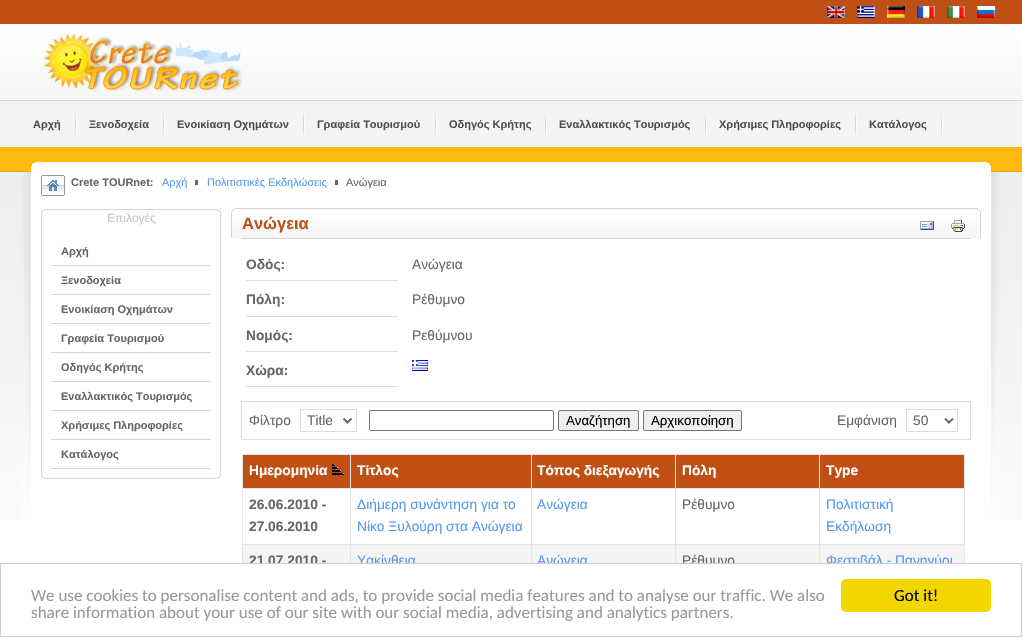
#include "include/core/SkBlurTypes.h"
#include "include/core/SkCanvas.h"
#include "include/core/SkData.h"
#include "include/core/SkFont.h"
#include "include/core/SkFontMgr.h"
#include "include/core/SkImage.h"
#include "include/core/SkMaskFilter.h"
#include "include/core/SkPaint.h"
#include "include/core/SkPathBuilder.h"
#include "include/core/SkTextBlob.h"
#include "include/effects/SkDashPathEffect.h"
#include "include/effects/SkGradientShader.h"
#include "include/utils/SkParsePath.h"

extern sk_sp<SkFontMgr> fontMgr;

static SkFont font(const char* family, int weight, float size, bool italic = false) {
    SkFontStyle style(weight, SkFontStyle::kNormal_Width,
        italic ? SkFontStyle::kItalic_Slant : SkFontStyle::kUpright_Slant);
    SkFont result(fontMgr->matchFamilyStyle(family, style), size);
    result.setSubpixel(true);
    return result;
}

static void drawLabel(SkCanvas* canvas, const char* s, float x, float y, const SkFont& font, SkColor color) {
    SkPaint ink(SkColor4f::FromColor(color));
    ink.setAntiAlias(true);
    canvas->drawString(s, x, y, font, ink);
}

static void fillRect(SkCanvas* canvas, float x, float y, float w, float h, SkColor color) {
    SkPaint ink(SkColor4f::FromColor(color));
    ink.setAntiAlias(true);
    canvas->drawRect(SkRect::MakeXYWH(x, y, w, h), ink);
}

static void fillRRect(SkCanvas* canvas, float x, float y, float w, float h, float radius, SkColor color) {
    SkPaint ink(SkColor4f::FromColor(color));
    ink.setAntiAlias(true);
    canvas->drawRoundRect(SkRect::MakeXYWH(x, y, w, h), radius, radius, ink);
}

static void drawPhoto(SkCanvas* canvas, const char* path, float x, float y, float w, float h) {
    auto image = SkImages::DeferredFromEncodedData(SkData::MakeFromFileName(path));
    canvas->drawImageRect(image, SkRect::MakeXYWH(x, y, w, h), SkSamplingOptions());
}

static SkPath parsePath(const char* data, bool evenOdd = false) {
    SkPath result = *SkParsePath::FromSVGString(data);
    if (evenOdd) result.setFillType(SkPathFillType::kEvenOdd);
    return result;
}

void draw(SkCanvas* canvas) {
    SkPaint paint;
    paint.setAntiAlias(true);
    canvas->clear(0xFFFFB911);
    fillRect(canvas, 0, 0, 1022, 24, 0xFFBF4F14);
    drawPhoto(canvas, "assets/img1.png", 827, 6, 18, 12);
    drawPhoto(canvas, "assets/img2.png", 857, 6, 18, 12);
    drawPhoto(canvas, "assets/img3.png", 887, 6, 18, 12);
    drawPhoto(canvas, "assets/img4.png", 917, 6, 18, 12);
    drawPhoto(canvas, "assets/img5.png", 947, 6, 18, 12);
    drawPhoto(canvas, "assets/img6.png", 977, 6, 18, 12);
    drawPhoto(canvas, "assets/img7.png", 0, 24, 1022, 75);
    fillRect(canvas, 0, 99, 1022, 1, 0xFFFFFFFF);
    drawPhoto(canvas, "assets/img8.png", 43, 33, 200, 58);
    fillRect(canvas, 0, 101, 1022, 46, 0xFFF4F4F4);
    fillRect(canvas, 0, 100, 1022, 1, 0xFFD5D5D5);
    drawPhoto(canvas, "assets/img9.png", 75, 113, 2, 23);
    SkFont font1 = font("Liberation Sans", 700, 11);
    drawLabel(canvas, "Αρχή", 33, 128, font1, 0xFF4F4F4F);
    drawPhoto(canvas, "assets/img9.png", 163, 113, 2, 23);
    drawLabel(canvas, "Ξενοδοχεία", 89, 128, font1, 0xFF4F4F4F);
    drawPhoto(canvas, "assets/img9.png", 303, 113, 2, 23);
    drawLabel(canvas, "Ενοικίαση Οχημάτων", 177, 128, font1, 0xFF4F4F4F);
    drawPhoto(canvas, "assets/img9.png", 435, 113, 2, 23);
    drawLabel(canvas, "Γραφεία Τουρισμού", 317, 128, font1, 0xFF4F4F4F);
    drawPhoto(canvas, "assets/img9.png", 545, 113, 2, 23);
    drawLabel(canvas, "Οδηγός Κρήτης", 449, 128, font1, 0xFF4F4F4F);
    drawPhoto(canvas, "assets/img9.png", 705, 113, 2, 23);
    drawLabel(canvas, "Εναλλακτικός Τουρισμός", 559, 128, font1, 0xFF4F4F4F);
    drawPhoto(canvas, "assets/img9.png", 855, 113, 2, 23);
    drawLabel(canvas, "Χρήσιμες Πληροφορίες", 719, 128, font1, 0xFF4F4F4F);
    drawPhoto(canvas, "assets/img9.png", 941, 113, 2, 23);
    drawLabel(canvas, "Κατάλογος", 869, 128, font1, 0xFF4F4F4F);
    fillRect(canvas, 0, 520, 1022, 43, 0xFFFFFFFF);
    drawPhoto(canvas, "assets/img10.png", 0, 162, 1022, 358);
    drawPhoto(canvas, "assets/img11.png", 21, 162, 980, 358);
    drawPhoto(canvas, "assets/img12.png", 41, 175, 24, 21);
    drawLabel(canvas, "Crete TOURnet:", 71, 186, font1, 0xFF666666);
    SkFont font2 = font("Liberation Sans", 400, 11);
    drawLabel(canvas, "Αρχή", 162, 186, font2, 0xFF5599EE);
    fillRect(canvas, 195, 180, 3, 5, 0xFF666666);
    drawLabel(canvas, "Πολιτιστικές Εκδηλώσεις", 207, 186, font2, 0xFF5599EE);
    drawLabel(canvas, "Ανώγεια", 346, 186, font2, 0xFF666666);
    fillRect(canvas, 335, 180, 3, 5, 0xFF666666);
    drawPhoto(canvas, "assets/img13.png", 41, 208, 180, 271);
    drawPhoto(canvas, "assets/img14.png", 41, 241, 4, 238);
    drawPhoto(canvas, "assets/img15.png", 45, 209, 176, 32);
    drawPhoto(canvas, "assets/img16.png", 41, 209, 4, 32);
    SkFont font3 = font("Liberation Sans", 400, 12);
    drawLabel(canvas, "Επιλογές", 107, 222, font3, 0xFFC6C6C6);
    fillRect(canvas, 51, 265, 160, 1, 0xFFD5D5D5);
    drawLabel(canvas, "Αρχή", 61, 255, font1, 0xFF666666);
    fillRect(canvas, 51, 294, 160, 1, 0xFFD5D5D5);
    drawLabel(canvas, "Ξενοδοχεία", 61, 284, font1, 0xFF666666);
    fillRect(canvas, 51, 323, 160, 1, 0xFFD5D5D5);
    drawLabel(canvas, "Ενοικίαση Οχημάτων", 61, 313, font1, 0xFF666666);
    fillRect(canvas, 51, 352, 160, 1, 0xFFD5D5D5);
    drawLabel(canvas, "Γραφεία Τουρισμού", 61, 342, font1, 0xFF666666);
    fillRect(canvas, 51, 381, 160, 1, 0xFFD5D5D5);
    drawLabel(canvas, "Οδηγός Κρήτης", 61, 371, font1, 0xFF666666);
    fillRect(canvas, 51, 410, 160, 1, 0xFFD5D5D5);
    drawLabel(canvas, "Εναλλακτικός Τουρισμός", 61, 400, font1, 0xFF666666);
    fillRect(canvas, 51, 439, 160, 1, 0xFFD5D5D5);
    drawLabel(canvas, "Χρήσιμες Πληροφορίες", 61, 429, font1, 0xFF666666);
    fillRect(canvas, 51, 468, 160, 1, 0xFFD5D5D5);
    drawLabel(canvas, "Κατάλογος", 61, 458, font1, 0xFF666666);
    drawPhoto(canvas, "assets/img17.png", 231, 208, 750, 30);
    fillRect(canvas, 241, 238, 730, 1, 0xFFD5D5D5);
    SkFont font4 = font("Liberation Sans", 700, 16.5f);
    drawLabel(canvas, "Ανώγεια", 242, 229, font4, 0xFFBF4F14);
    drawPhoto(canvas, "assets/img18.png", 920, 221, 14, 9);
    drawPhoto(canvas, "assets/img19.png", 951, 220, 14, 12);
    fillRect(canvas, 246, 280, 152, 1, 0xFFDDDDDD);
    SkFont font5 = font("Liberation Sans", 700, 13.75f);
    drawLabel(canvas, "Οδός:", 246, 269, font5, 0xFF666666);
    SkFont font6 = font("Liberation Sans", 400, 13.75f);
    drawLabel(canvas, "Ανώγεια", 412, 269, font6, 0xFF666666);
    fillRect(canvas, 246, 316, 152, 1, 0xFFDDDDDD);
    drawLabel(canvas, "Πόλη:", 246, 304, font5, 0xFF666666);
    drawLabel(canvas, "Ρέθυμνο", 412, 304, font6, 0xFF666666);
    fillRect(canvas, 246, 351, 152, 1, 0xFFDDDDDD);
    drawLabel(canvas, "Νομός:", 246, 340, font5, 0xFF666666);
    drawLabel(canvas, "Ρεθύμνου", 412, 340, font6, 0xFF666666);
    fillRect(canvas, 246, 386, 152, 1, 0xFFDDDDDD);
    drawLabel(canvas, "Χώρα:", 246, 375, font5, 0xFF666666);
    drawPhoto(canvas, "assets/img20.png", 412, 360, 16, 11);
    paint.setStroke(true);
    paint.setStrokeWidth(1);
    paint.setColor(0xFFDDDDDD);
    canvas->drawRect(SkRect::MakeXYWH(241.5f, 401.5f, 729, 38), paint);
    drawLabel(canvas, "Φίλτρο", 249, 425, font6, 0xFF666666);
    canvas->drawRect(SkRect::MakeXYWH(300.5f, 409.5f, 56, 22), paint);
    paint.setStrokeWidth(2);
    paint.setColor(0xFF666666);
    canvas->drawPath(parsePath("M343.5 418.5L347.5 422.5L351.5 418.5"), paint);
    drawLabel(canvas, "Title", 307, 425, font6, 0xFF666666);
    paint.setStrokeWidth(1);
    paint.setColor(0xFF767676);
    canvas->drawRoundRect(SkRect::MakeXYWH(369.5f, 410.5f, 184, 20), 1.5f, 1.5f, paint);
    paint.setStroke(false);
    paint.setColor(0xFFEFEFEF);
    canvas->drawRoundRect(SkRect::MakeXYWH(558.5f, 410.5f, 80, 20), 1.5f, 1.5f, paint);
    paint.setStroke(true);
    paint.setColor(0xFF767676);
    canvas->drawRoundRect(SkRect::MakeXYWH(558.5f, 410.5f, 80, 20), 1.5f, 1.5f, paint);
    SkFont font7 = font("Liberation Sans", 400, 13.25f);
    drawLabel(canvas, "Αναζήτηση", 566, 425, font7, 0xFF000000);
    paint.setStroke(false);
    paint.setColor(0xFFEFEFEF);
    canvas->drawRoundRect(SkRect::MakeXYWH(643.5f, 410.5f, 98, 20), 1.5f, 1.5f, paint);
    paint.setStroke(true);
    paint.setColor(0xFF767676);
    canvas->drawRoundRect(SkRect::MakeXYWH(643.5f, 410.5f, 98, 20), 1.5f, 1.5f, paint);
    drawLabel(canvas, "Αρχικοποίηση", 651, 425, font7, 0xFF000000);
    drawLabel(canvas, "Εμφάνιση", 837, 425, font6, 0xFF666666);
    paint.setColor(0xFFDDDDDD);
    canvas->drawRect(SkRect::MakeXYWH(906.5f, 409.5f, 51, 22), paint);
    paint.setStrokeWidth(2);
    paint.setColor(0xFF666666);
    canvas->drawPath(parsePath("M945 418.5L949 422.5L953 418.5"), paint);
    drawLabel(canvas, "50", 913, 425, font6, 0xFF666666);
    fillRect(canvas, 242, 454, 723, 1, 0xFFE5E5E5);
    fillRect(canvas, 964, 454, 1, 109, 0xFFE5E5E5);
    fillRect(canvas, 242, 454, 1, 109, 0xFFE5E5E5);
    fillRect(canvas, 243, 455, 107, 33, 0xFFBF4F14);
    fillRect(canvas, 819, 544, 1, 19, 0xFFE5E5E5);
    fillRect(canvas, 819, 544, 146, 1, 0xFFE5E5E5);
    fillRect(canvas, 819, 488, 1, 57, 0xFFE5E5E5);
    fillRect(canvas, 819, 488, 146, 1, 0xFFE5E5E5);
    fillRect(canvas, 819, 454, 1, 35, 0xFFE5E5E5);
    fillRect(canvas, 675, 544, 1, 19, 0xFFE5E5E5);
    fillRect(canvas, 675, 544, 145, 1, 0xFFE5E5E5);
    fillRect(canvas, 675, 488, 1, 57, 0xFFE5E5E5);
    fillRect(canvas, 675, 488, 145, 1, 0xFFE5E5E5);
    fillRect(canvas, 675, 454, 1, 35, 0xFFE5E5E5);
    fillRect(canvas, 531, 544, 1, 19, 0xFFE5E5E5);
    fillRect(canvas, 531, 544, 145, 1, 0xFFE5E5E5);
    fillRect(canvas, 531, 488, 1, 57, 0xFFE5E5E5);
    fillRect(canvas, 531, 488, 145, 1, 0xFFE5E5E5);
    fillRect(canvas, 531, 454, 1, 35, 0xFFE5E5E5);
    fillRect(canvas, 350, 544, 1, 19, 0xFFE5E5E5);
    fillRect(canvas, 350, 544, 182, 1, 0xFFE5E5E5);
    fillRect(canvas, 350, 488, 1, 57, 0xFFE5E5E5);
    fillRect(canvas, 350, 488, 182, 1, 0xFFE5E5E5);
    fillRect(canvas, 350, 454, 1, 35, 0xFFE5E5E5);
    fillRect(canvas, 242, 488, 109, 1, 0xFFE5E5E5);
    drawLabel(canvas, "Ημερομηνία", 249, 475, font5, 0xFFFFFFFF);
    drawPhoto(canvas, "assets/img21.png", 332, 464, 12, 11);
    fillRect(canvas, 351, 455, 180, 33, 0xFFBF4F14);
    drawLabel(canvas, "Τίτλος", 357, 475, font5, 0xFFFFFFFF);
    fillRect(canvas, 532, 455, 143, 33, 0xFFBF4F14);
    drawLabel(canvas, "Τόπος διεξαγωγής", 537, 475, font5, 0xFFFFFFFF);
    fillRect(canvas, 676, 455, 143, 33, 0xFFBF4F14);
    drawLabel(canvas, "Πόλη", 682, 475, font5, 0xFFFFFFFF);
    fillRect(canvas, 820, 455, 144, 33, 0xFFBF4F14);
    drawLabel(canvas, "Type", 826, 475, font5, 0xFFFFFFFF);
    fillRect(canvas, 242, 544, 109, 1, 0xFFE5E5E5);
    drawLabel(canvas, "26.06.2010 -", 249, 509, font5, 0xFF666666);
    drawLabel(canvas, "27.06.2010", 249, 531, font5, 0xFF666666);
    drawLabel(canvas, "Διήμερη συνάντηση για το", 357, 509, font6, 0xFF5599EE);
    drawLabel(canvas, "Νίκο Ξυλούρη στα Ανώγεια", 357, 531, font6, 0xFF5599EE);
    drawLabel(canvas, "Ανώγεια", 537, 509, font6, 0xFF5599EE);
    drawLabel(canvas, "Ρέθυμνο", 682, 509, font6, 0xFF666666);
    drawLabel(canvas, "Πολιτιστική", 826, 509, font6, 0xFF5599EE);
    drawLabel(canvas, "Εκδήλωση", 826, 531, font6, 0xFF5599EE);
    fillRect(canvas, 243, 545, 107, 18, 0xFFF4F4F4);
    drawLabel(canvas, "21.07.2010 -", 249, 565, font5, 0xFF666666);
    fillRect(canvas, 351, 545, 180, 18, 0xFFF4F4F4);
    drawLabel(canvas, "Υακίνθεια", 357, 565, font6, 0xFF5599EE);
    fillRect(canvas, 532, 545, 143, 18, 0xFFF4F4F4);
    drawLabel(canvas, "Ανώγεια", 537, 565, font6, 0xFF5599EE);
    fillRect(canvas, 676, 545, 143, 18, 0xFFF4F4F4);
    drawLabel(canvas, "Ρέθυμνο", 682, 565, font6, 0xFF666666);
    fillRect(canvas, 820, 545, 144, 18, 0xFFF4F4F4);
    drawLabel(canvas, "Φεστιβάλ - Πανηγύρι", 826, 565, font6, 0xFF5599EE);
    paint.setStroke(false);
    paint.setColor(0xFFFFFFFF);
    canvas->drawRect(SkRect::MakeXYWH(0.5f, 563.5f, 1021, 73), paint);
    paint.setStroke(true);
    paint.setStrokeWidth(1);
    paint.setColor(0xFFCCCCCC);
    canvas->drawRect(SkRect::MakeXYWH(0.5f, 563.5f, 1021, 73), paint);
    SkFont font8 = font("Carlito", 400, 17);
    drawLabel(canvas, "We use cookies to personalise content and ads, to provide social media features and to analyse our traffic. We also", 31, 601, font8, 0xFF999999);
    drawLabel(canvas, "share information about your use of our site with our social media, advertising and analytics partners.", 31, 618, font8, 0xFF999999);
    fillRRect(canvas, 841, 579, 150, 33, 5, 0xFFF1D600);
    drawLabel(canvas, "Got it!", 894, 601, font8, 0xFF000000);
}
